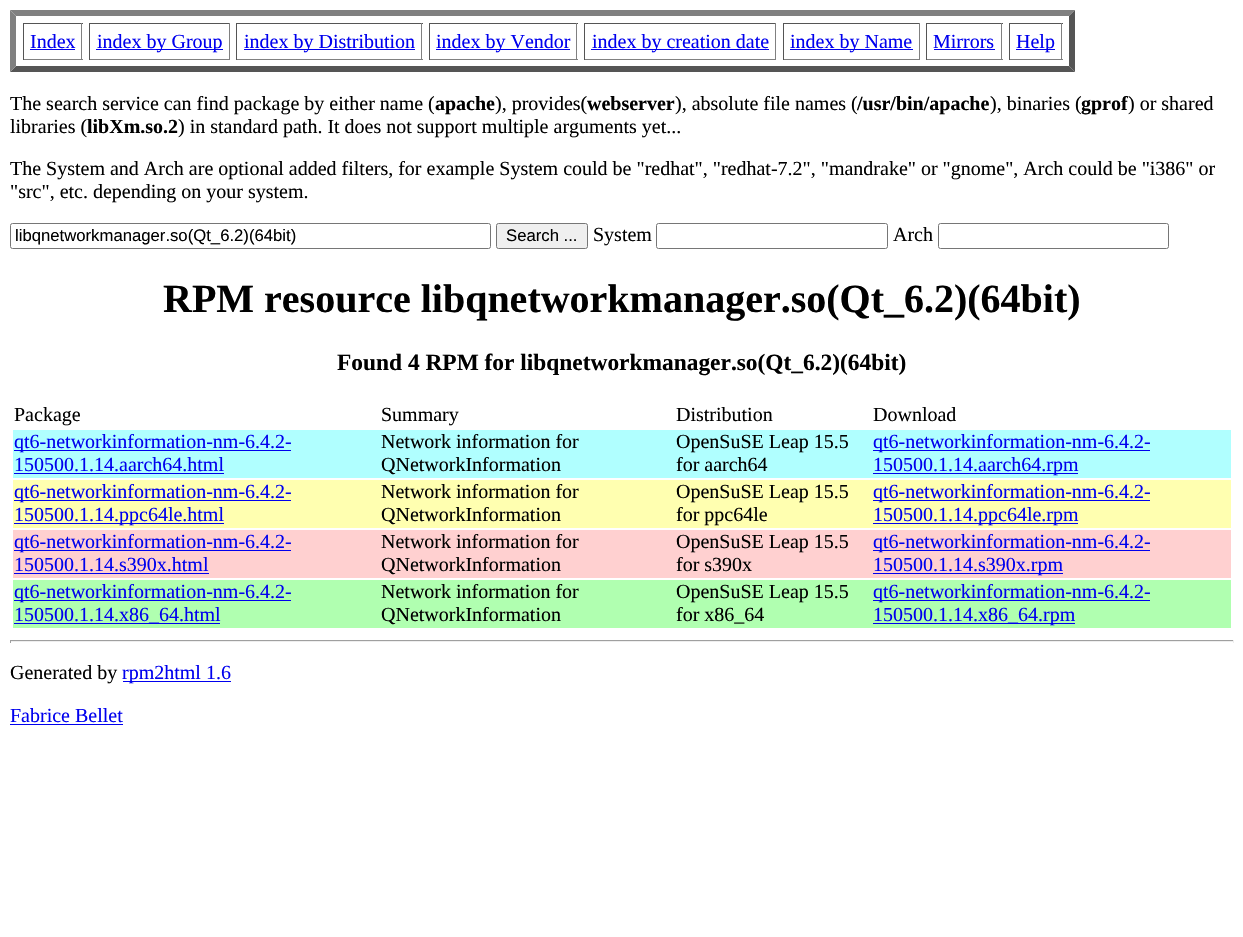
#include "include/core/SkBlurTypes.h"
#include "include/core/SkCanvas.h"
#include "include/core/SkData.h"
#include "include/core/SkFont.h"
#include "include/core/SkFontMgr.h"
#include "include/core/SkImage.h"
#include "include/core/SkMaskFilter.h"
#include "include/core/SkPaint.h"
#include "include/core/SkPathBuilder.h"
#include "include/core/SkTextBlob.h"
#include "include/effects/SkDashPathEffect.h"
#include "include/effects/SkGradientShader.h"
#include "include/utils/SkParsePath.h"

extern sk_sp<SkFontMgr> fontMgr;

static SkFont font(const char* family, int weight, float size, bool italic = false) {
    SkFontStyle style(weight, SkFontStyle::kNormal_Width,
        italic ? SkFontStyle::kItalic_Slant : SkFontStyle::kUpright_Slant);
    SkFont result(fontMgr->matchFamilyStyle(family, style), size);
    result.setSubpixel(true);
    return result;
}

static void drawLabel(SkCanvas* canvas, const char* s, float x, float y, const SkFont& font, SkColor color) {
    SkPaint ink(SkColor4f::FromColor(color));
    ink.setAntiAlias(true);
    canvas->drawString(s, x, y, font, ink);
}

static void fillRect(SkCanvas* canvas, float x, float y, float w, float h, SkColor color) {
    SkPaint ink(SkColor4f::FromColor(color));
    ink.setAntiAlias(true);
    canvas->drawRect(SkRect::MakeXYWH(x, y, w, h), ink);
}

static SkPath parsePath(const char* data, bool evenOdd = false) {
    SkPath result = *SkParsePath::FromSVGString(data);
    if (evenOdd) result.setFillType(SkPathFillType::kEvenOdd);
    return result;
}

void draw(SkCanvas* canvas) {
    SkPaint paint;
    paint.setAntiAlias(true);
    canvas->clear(0xFFFFFFFF);
    paint.setColor(0xFF808080);
    canvas->drawPath(parsePath("M10 10H1075L1069 16H16Z"), paint);
    paint.setColor(0xFF555555);
    canvas->drawPath(parsePath("M1075 10V72L1069 66V16Z"), paint);
    canvas->drawPath(parsePath("M1075 72H10L16 66H1069Z"), paint);
    paint.setColor(0xFF808080);
    canvas->drawPath(parsePath("M10 72V10L16 16V66Z"), paint);
    fillRect(canvas, 23, 23, 60, 1, 0xFF555555);
    fillRect(canvas, 81, 23, 1, 37, 0xFF808080);
    fillRect(canvas, 23, 59, 60, 1, 0xFF808080);
    fillRect(canvas, 23, 23, 1, 37, 0xFF555555);
    SkFont font1 = font("Liberation Serif", 400, 20);
    drawLabel(canvas, "Index", 30, 48, font1, 0xFF0000EE);
    fillRect(canvas, 30, 49, 45, 1, 0xFF0000EE);
    fillRect(canvas, 89, 23, 141, 1, 0xFF555555);
    fillRect(canvas, 229, 23, 1, 37, 0xFF808080);
    fillRect(canvas, 89, 59, 141, 1, 0xFF808080);
    fillRect(canvas, 89, 23, 1, 37, 0xFF555555);
    fillRect(canvas, 96, 49, 127, 1, 0xFF0000EE);
    drawLabel(canvas, "index by Group", 97, 48, font1, 0xFF0000EE);
    fillRect(canvas, 236, 23, 187, 1, 0xFF555555);
    fillRect(canvas, 421, 23, 1, 37, 0xFF808080);
    fillRect(canvas, 236, 59, 187, 1, 0xFF808080);
    fillRect(canvas, 236, 23, 1, 37, 0xFF555555);
    fillRect(canvas, 244, 49, 171, 1, 0xFF0000EE);
    drawLabel(canvas, "index by Distribution", 244, 48, font1, 0xFF0000EE);
    fillRect(canvas, 429, 23, 149, 1, 0xFF555555);
    fillRect(canvas, 576, 23, 1, 37, 0xFF808080);
    fillRect(canvas, 429, 59, 149, 1, 0xFF808080);
    fillRect(canvas, 429, 23, 1, 37, 0xFF555555);
    fillRect(canvas, 436, 49, 134, 1, 0xFF0000EE);
    drawLabel(canvas, "index by Vendor", 436, 48, font1, 0xFF0000EE);
    fillRect(canvas, 584, 23, 192, 1, 0xFF555555);
    fillRect(canvas, 775, 23, 1, 37, 0xFF808080);
    fillRect(canvas, 584, 59, 192, 1, 0xFF808080);
    fillRect(canvas, 584, 23, 1, 37, 0xFF555555);
    fillRect(canvas, 591, 49, 178, 1, 0xFF0000EE);
    drawLabel(canvas, "index by creation date", 592, 48, font1, 0xFF0000EE);
    fillRect(canvas, 783, 23, 137, 1, 0xFF555555);
    fillRect(canvas, 919, 23, 1, 37, 0xFF808080);
    fillRect(canvas, 783, 59, 137, 1, 0xFF808080);
    fillRect(canvas, 783, 23, 1, 37, 0xFF555555);
    fillRect(canvas, 790, 49, 123, 1, 0xFF0000EE);
    drawLabel(canvas, "index by Name", 790, 48, font1, 0xFF0000EE);
    fillRect(canvas, 926, 23, 77, 1, 0xFF555555);
    fillRect(canvas, 1001, 23, 1, 37, 0xFF808080);
    fillRect(canvas, 926, 59, 77, 1, 0xFF808080);
    fillRect(canvas, 926, 23, 1, 37, 0xFF555555);
    drawLabel(canvas, "Mirrors", 933, 48, font1, 0xFF0000EE);
    fillRect(canvas, 934, 49, 61, 1, 0xFF0000EE);
    fillRect(canvas, 1009, 23, 54, 1, 0xFF555555);
    fillRect(canvas, 1061, 23, 1, 37, 0xFF808080);
    fillRect(canvas, 1009, 59, 54, 1, 0xFF808080);
    fillRect(canvas, 1009, 23, 1, 37, 0xFF555555);
    fillRect(canvas, 1016, 49, 39, 1, 0xFF0000EE);
    drawLabel(canvas, "Help", 1016, 48, font1, 0xFF0000EE);
    drawLabel(canvas, "The search service can find package by either name (", 10, 110, font1, 0xFF000000);
    SkFont font2 = font("Liberation Serif", 700, 20);
    drawLabel(canvas, "apache", 435, 110, font2, 0xFF000000);
    drawLabel(canvas, "), provides(", 495, 110, font1, 0xFF000000);
    drawLabel(canvas, "webserver", 587, 110, font2, 0xFF000000);
    drawLabel(canvas, "), absolute file names (", 675, 110, font1, 0xFF000000);
    drawLabel(canvas, "/usr/bin/apache", 857, 110, font2, 0xFF000000);
    drawLabel(canvas, "), binaries (", 990, 110, font1, 0xFF000000);
    drawLabel(canvas, "gprof", 1081, 110, font2, 0xFF000000);
    drawLabel(canvas, ") or shared", 1128, 110, font1, 0xFF000000);
    drawLabel(canvas, "libraries (", 10, 133, font1, 0xFF000000);
    drawLabel(canvas, "libXm.so.2", 87, 133, font2, 0xFF000000);
    drawLabel(canvas, ") in standard path. It does not support multiple arguments yet...", 178, 133, font1, 0xFF000000);
    drawLabel(canvas, "The System and Arch are optional added filters, for example System could be \"redhat\", \"redhat-7.2\", \"mandrake\" or \"gnome\", Arch could be \"i386\" or", 10, 175, font1, 0xFF000000);
    drawLabel(canvas, "\"src\", etc. depending on your system.", 10, 198, font1, 0xFF000000);
    paint.setStroke(true);
    paint.setStrokeWidth(1);
    paint.setColor(0xFF767676);
    canvas->drawRoundRect(SkRect::MakeXYWH(10.5f, 223.5f, 480, 25), 2, 2, paint);
    SkFont font3 = font("Liberation Sans", 400, 16.7f);
    drawLabel(canvas, "libqnetworkmanager.so(Qt_6.2)(64bit)", 15, 241, font3, 0xFF000000);
    paint.setStroke(false);
    paint.setColor(0xFFEFEFEF);
    canvas->drawRoundRect(SkRect::MakeXYWH(496.5f, 223.5f, 91, 25), 2, 2, paint);
    paint.setStroke(true);
    paint.setColor(0xFF767676);
    canvas->drawRoundRect(SkRect::MakeXYWH(496.5f, 223.5f, 91, 25), 2, 2, paint);
    drawLabel(canvas, "Search ...", 506, 241, font3, 0xFF000000);
    drawLabel(canvas, "System", 593, 241, font1, 0xFF000000);
    canvas->drawRoundRect(SkRect::MakeXYWH(656.5f, 223.5f, 231, 25), 2, 2, paint);
    drawLabel(canvas, "Arch", 893, 241, font1, 0xFF000000);
    canvas->drawRoundRect(SkRect::MakeXYWH(938.5f, 223.5f, 230, 25), 2, 2, paint);
    SkFont font4 = font("Liberation Serif", 700, 40);
    drawLabel(canvas, "RPM resource libqnetworkmanager.so(Qt_6.2)(64bit)", 163, 312, font4, 0xFF000000);
    SkFont font5 = font("Liberation Serif", 700, 23.4f);
    drawLabel(canvas, "Found 4 RPM for libqnetworkmanager.so(Qt_6.2)(64bit)", 337, 370, font5, 0xFF000000);
    drawLabel(canvas, "Package", 14, 421, font1, 0xFF000000);
    drawLabel(canvas, "Summary", 381, 421, font1, 0xFF000000);
    drawLabel(canvas, "Distribution", 676, 421, font1, 0xFF000000);
    drawLabel(canvas, "Download", 873, 421, font1, 0xFF000000);
    fillRect(canvas, 13, 430, 1218, 48, 0xFFB0FFFF);
    fillRect(canvas, 14, 450, 277, 1, 0xFF0000EE);
    drawLabel(canvas, "qt6-networkinformation-nm-6.4.2-", 14, 448, font1, 0xFF0000EE);
    drawLabel(canvas, "150500.1.14.aarch64.html", 14, 471, font1, 0xFF0000EE);
    fillRect(canvas, 14, 473, 210, 1, 0xFF0000EE);
    drawLabel(canvas, "Network information for", 381, 448, font1, 0xFF000000);
    drawLabel(canvas, "QNetworkInformation", 381, 471, font1, 0xFF000000);
    drawLabel(canvas, "OpenSuSE Leap 15.5", 676, 448, font1, 0xFF000000);
    drawLabel(canvas, "for aarch64", 676, 471, font1, 0xFF000000);
    fillRect(canvas, 873, 450, 277, 1, 0xFF0000EE);
    drawLabel(canvas, "qt6-networkinformation-nm-6.4.2-", 873, 448, font1, 0xFF0000EE);
    fillRect(canvas, 873, 473, 205, 1, 0xFF0000EE);
    drawLabel(canvas, "150500.1.14.aarch64.rpm", 873, 471, font1, 0xFF0000EE);
    fillRect(canvas, 13, 480, 1218, 48, 0xFFFFFFB0);
    fillRect(canvas, 14, 500, 277, 1, 0xFF0000EE);
    drawLabel(canvas, "qt6-networkinformation-nm-6.4.2-", 14, 498, font1, 0xFF0000EE);
    fillRect(canvas, 14, 523, 210, 1, 0xFF0000EE);
    drawLabel(canvas, "150500.1.14.ppc64le.html", 14, 521, font1, 0xFF0000EE);
    drawLabel(canvas, "Network information for", 381, 498, font1, 0xFF000000);
    drawLabel(canvas, "QNetworkInformation", 381, 521, font1, 0xFF000000);
    drawLabel(canvas, "OpenSuSE Leap 15.5", 676, 498, font1, 0xFF000000);
    drawLabel(canvas, "for ppc64le", 676, 521, font1, 0xFF000000);
    fillRect(canvas, 873, 500, 277, 1, 0xFF0000EE);
    drawLabel(canvas, "qt6-networkinformation-nm-6.4.2-", 873, 498, font1, 0xFF0000EE);
    fillRect(canvas, 873, 523, 205, 1, 0xFF0000EE);
    drawLabel(canvas, "150500.1.14.ppc64le.rpm", 873, 521, font1, 0xFF0000EE);
    fillRect(canvas, 13, 530, 1218, 48, 0xFFFFD0D0);
    fillRect(canvas, 14, 550, 277, 1, 0xFF0000EE);
    drawLabel(canvas, "qt6-networkinformation-nm-6.4.2-", 14, 548, font1, 0xFF0000EE);
    drawLabel(canvas, "150500.1.14.s390x.html", 14, 571, font1, 0xFF0000EE);
    fillRect(canvas, 14, 573, 195, 1, 0xFF0000EE);
    drawLabel(canvas, "Network information for", 381, 548, font1, 0xFF000000);
    drawLabel(canvas, "QNetworkInformation", 381, 571, font1, 0xFF000000);
    drawLabel(canvas, "OpenSuSE Leap 15.5", 676, 548, font1, 0xFF000000);
    drawLabel(canvas, "for s390x", 676, 571, font1, 0xFF000000);
    fillRect(canvas, 873, 550, 277, 1, 0xFF0000EE);
    drawLabel(canvas, "qt6-networkinformation-nm-6.4.2-", 873, 548, font1, 0xFF0000EE);
    fillRect(canvas, 873, 573, 190, 1, 0xFF0000EE);
    drawLabel(canvas, "150500.1.14.s390x.rpm", 873, 571, font1, 0xFF0000EE);
    fillRect(canvas, 13, 580, 1218, 48, 0xFFB0FFB0);
    fillRect(canvas, 14, 600, 277, 1, 0xFF0000EE);
    drawLabel(canvas, "qt6-networkinformation-nm-6.4.2-", 14, 598, font1, 0xFF0000EE);
    fillRect(canvas, 14, 623, 206, 1, 0xFF0000EE);
    drawLabel(canvas, "150500.1.14.x86_64.html", 14, 621, font1, 0xFF0000EE);
    drawLabel(canvas, "Network information for", 381, 598, font1, 0xFF000000);
    drawLabel(canvas, "QNetworkInformation", 381, 621, font1, 0xFF000000);
    drawLabel(canvas, "OpenSuSE Leap 15.5", 676, 598, font1, 0xFF000000);
    drawLabel(canvas, "for x86_64", 676, 621, font1, 0xFF000000);
    fillRect(canvas, 873, 600, 277, 1, 0xFF0000EE);
    drawLabel(canvas, "qt6-networkinformation-nm-6.4.2-", 873, 598, font1, 0xFF0000EE);
    fillRect(canvas, 873, 623, 202, 1, 0xFF0000EE);
    drawLabel(canvas, "150500.1.14.x86_64.rpm", 873, 621, font1, 0xFF0000EE);
    fillRect(canvas, 10, 640, 1224, 1, 0xFF9F9F9F);
    fillRect(canvas, 1233, 640, 1, 3, 0xFFEEEEEE);
    fillRect(canvas, 10, 641, 1224, 1, 0xFFEEEEEE);
    fillRect(canvas, 10, 640, 1, 3, 0xFF9F9F9F);
    drawLabel(canvas, "Generated by", 10, 679, font1, 0xFF000000);
    fillRect(canvas, 123, 681, 108, 1, 0xFF0000EE);
    drawLabel(canvas, "rpm2html 1.6", 122, 679, font1, 0xFF0000EE);
    drawLabel(canvas, "Fabrice Bellet", 10, 722, font1, 0xFF0000EE);
    fillRect(canvas, 10, 724, 113, 1, 0xFF0000EE);
}
